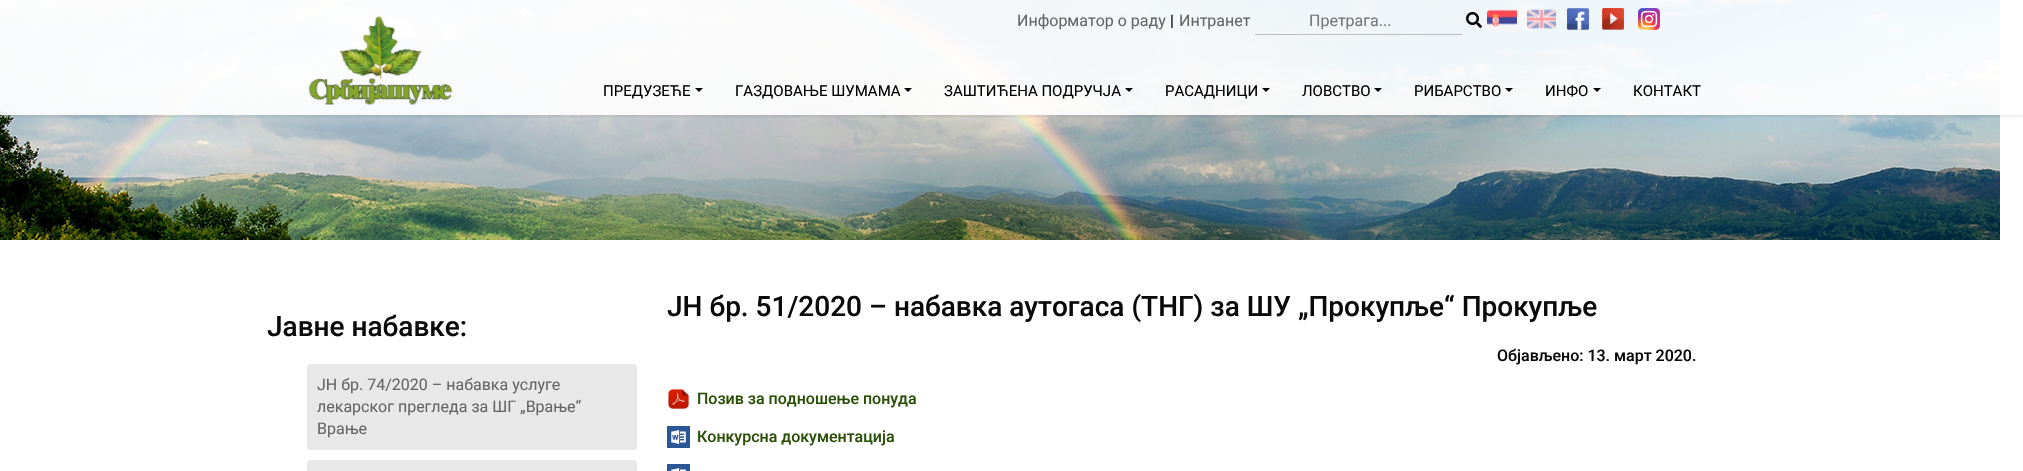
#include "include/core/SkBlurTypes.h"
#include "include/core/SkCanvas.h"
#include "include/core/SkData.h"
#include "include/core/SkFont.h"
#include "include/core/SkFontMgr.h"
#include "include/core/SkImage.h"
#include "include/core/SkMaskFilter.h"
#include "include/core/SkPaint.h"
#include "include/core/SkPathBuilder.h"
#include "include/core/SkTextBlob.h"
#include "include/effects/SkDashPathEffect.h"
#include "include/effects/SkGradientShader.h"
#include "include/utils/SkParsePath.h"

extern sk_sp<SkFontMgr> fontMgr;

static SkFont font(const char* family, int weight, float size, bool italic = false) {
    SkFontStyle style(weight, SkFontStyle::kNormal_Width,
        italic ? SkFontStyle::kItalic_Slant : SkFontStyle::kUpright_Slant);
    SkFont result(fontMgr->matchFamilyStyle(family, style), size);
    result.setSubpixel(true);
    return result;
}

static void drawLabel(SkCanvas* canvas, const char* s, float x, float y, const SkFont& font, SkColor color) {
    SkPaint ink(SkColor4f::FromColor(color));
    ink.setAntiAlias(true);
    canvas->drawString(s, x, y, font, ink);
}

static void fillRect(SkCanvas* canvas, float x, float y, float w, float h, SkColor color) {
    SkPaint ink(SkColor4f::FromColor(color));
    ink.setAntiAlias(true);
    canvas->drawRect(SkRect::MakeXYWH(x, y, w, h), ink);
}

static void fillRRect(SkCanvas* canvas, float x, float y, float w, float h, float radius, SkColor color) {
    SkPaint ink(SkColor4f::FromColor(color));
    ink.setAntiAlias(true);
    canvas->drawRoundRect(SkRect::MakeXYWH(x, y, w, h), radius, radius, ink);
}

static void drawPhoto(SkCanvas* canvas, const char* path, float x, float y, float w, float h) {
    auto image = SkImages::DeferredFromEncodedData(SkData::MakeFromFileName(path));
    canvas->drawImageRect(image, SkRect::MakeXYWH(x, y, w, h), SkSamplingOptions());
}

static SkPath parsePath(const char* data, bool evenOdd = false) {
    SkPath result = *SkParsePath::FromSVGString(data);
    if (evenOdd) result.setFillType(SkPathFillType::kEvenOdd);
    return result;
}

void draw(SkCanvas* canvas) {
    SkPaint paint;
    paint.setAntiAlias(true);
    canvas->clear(0xFFFFFFFF);
    drawPhoto(canvas, "assets/img8.png", 0, 0, 2000, 240);
    canvas->save();
    canvas->clipRect(SkRect::MakeXYWH(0, 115, 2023, 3));
    paint.setColor(0x14000000);
    paint.setMaskFilter(SkMaskFilter::MakeBlur(kNormal_SkBlurStyle, 1.5f));
    canvas->drawRect(SkRect::MakeXYWH(0, 2, 2023, 115), paint);
    paint.setMaskFilter(nullptr);
    canvas->restore();
    fillRect(canvas, 0, 0, 2000, 115, 0xE6FFFFFF);
    drawPhoto(canvas, "assets/img1.png", 308, 16, 145, 89);
    SkFont font1 = font("Roboto", 400, 16);
    drawLabel(canvas, "Информатор о раду", 1017, 26, font1, 0xFF656565);
    drawLabel(canvas, "|", 1170, 26, font1, 0xFF0A0A0A);
    drawLabel(canvas, "Интранет", 1179, 26, font1, 0xFF656565);
    fillRect(canvas, 1255, 34, 207, 1, 0xFFBFBFBF);
    drawLabel(canvas, "Претрага...", 1309, 26, font1, 0xFF757575);
    drawPhoto(canvas, "assets/img2.png", 1466, 12, 16, 16);
    drawPhoto(canvas, "assets/img3.png", 1487, 9, 30, 21);
    drawPhoto(canvas, "assets/img4.png", 1527, 9, 29, 20);
    drawPhoto(canvas, "assets/img5.png", 1567, 8, 22, 22);
    drawPhoto(canvas, "assets/img6.png", 1602, 8, 22, 22);
    drawPhoto(canvas, "assets/img7.png", 1638, 8, 22, 22);
    SkFont font2 = font("Roboto", 400, 15);
    drawLabel(canvas, "ПРЕДУЗЕЋЕ", 603, 96, font2, 0xFF000000);
    paint.setColor(0xFF000000);
    canvas->drawPath(parsePath("M695 88H703L699 92Z"), paint);
    drawLabel(canvas, "ГАЗДОВАЊЕ ШУМАМА", 735, 96, font2, 0xFF000000);
    canvas->drawPath(parsePath("M904 88H912L908 92Z"), paint);
    drawLabel(canvas, "ЗАШТИЋЕНА ПОДРУЧЈА", 944, 96, font2, 0xFF000000);
    canvas->drawPath(parsePath("M1125 88H1133L1129 92Z"), paint);
    drawLabel(canvas, "РАСАДНИЦИ", 1165, 96, font2, 0xFF000000);
    canvas->drawPath(parsePath("M1262 88H1270L1266 92Z"), paint);
    drawLabel(canvas, "ЛОВСТВО", 1302, 96, font2, 0xFF000000);
    canvas->drawPath(parsePath("M1374 88H1382L1378 92Z"), paint);
    drawLabel(canvas, "РИБАРСТВО", 1414, 96, font2, 0xFF000000);
    canvas->drawPath(parsePath("M1505 88H1513L1509 92Z"), paint);
    drawLabel(canvas, "ИНФО", 1545, 96, font2, 0xFF000000);
    canvas->drawPath(parsePath("M1593 88H1601L1597 92Z"), paint);
    drawLabel(canvas, "КОНТАКТ", 1633, 96, font2, 0xFF000000);
    SkFont font3 = font("Roboto", 500, 28);
    drawLabel(canvas, "Јавне набавке:", 267, 336, font3, 0xFF0A0A0A);
    fillRRect(canvas, 307, 364, 330, 86, 4, 0xFFE8E8E8);
    drawLabel(canvas, "ЈН бр. 74/2020 – набавка услуге", 317, 390, font1, 0xFF656565);
    drawLabel(canvas, "лекарског прегледа за ШГ „Врање“", 317, 412, font1, 0xFF656565);
    drawLabel(canvas, "Врање", 317, 434, font1, 0xFF656565);
    fillRRect(canvas, 307, 460, 330, 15, 4, 0xFFE8E8E8);
    drawLabel(canvas, "ЈН бр. 51/2020 – набавка аутогаса (ТНГ) за ШУ „Прокупље“ Прокупље", 667, 316, font3, 0xFF0A0A0A);
    SkFont font4 = font("Roboto", 500, 16);
    drawLabel(canvas, "Објављено: 13. март 2020.", 1497, 361, font4, 0xFF0A0A0A);
    drawPhoto(canvas, "assets/img9.png", 668, 389, 21, 20);
    drawLabel(canvas, "Позив за подношење понуда", 697, 404, font4, 0xFF295006);
    drawPhoto(canvas, "assets/img10.png", 667, 426, 23, 22);
    drawLabel(canvas, "Конкурсна документација", 697, 442, font4, 0xFF295006);
    drawPhoto(canvas, "assets/img11.png", 667, 464, 23, 7);
}
